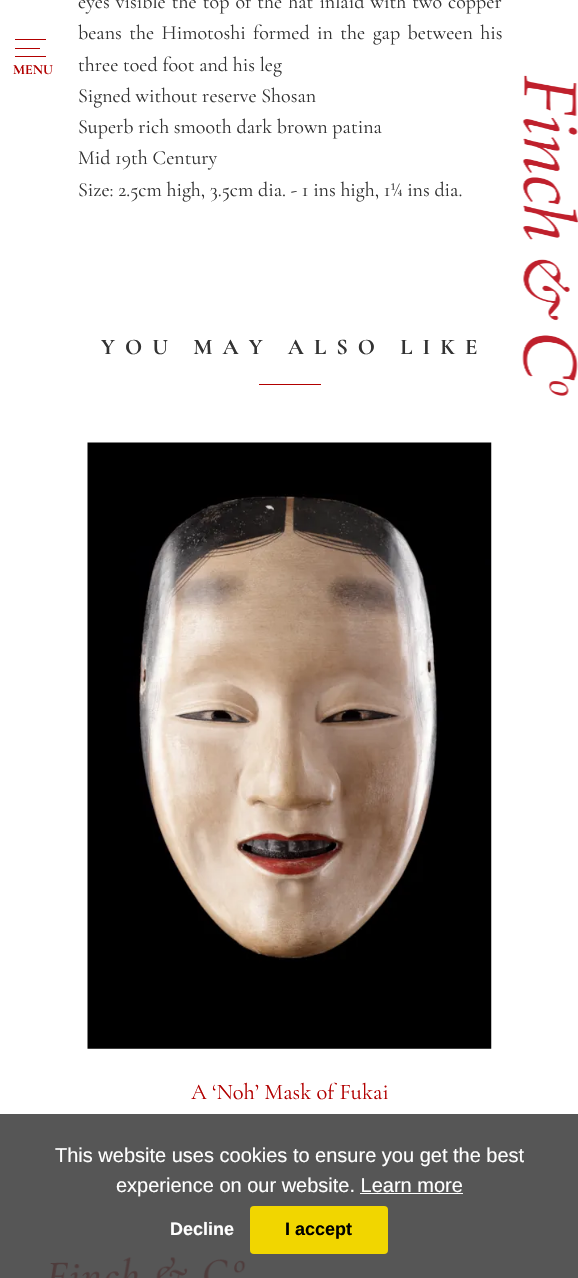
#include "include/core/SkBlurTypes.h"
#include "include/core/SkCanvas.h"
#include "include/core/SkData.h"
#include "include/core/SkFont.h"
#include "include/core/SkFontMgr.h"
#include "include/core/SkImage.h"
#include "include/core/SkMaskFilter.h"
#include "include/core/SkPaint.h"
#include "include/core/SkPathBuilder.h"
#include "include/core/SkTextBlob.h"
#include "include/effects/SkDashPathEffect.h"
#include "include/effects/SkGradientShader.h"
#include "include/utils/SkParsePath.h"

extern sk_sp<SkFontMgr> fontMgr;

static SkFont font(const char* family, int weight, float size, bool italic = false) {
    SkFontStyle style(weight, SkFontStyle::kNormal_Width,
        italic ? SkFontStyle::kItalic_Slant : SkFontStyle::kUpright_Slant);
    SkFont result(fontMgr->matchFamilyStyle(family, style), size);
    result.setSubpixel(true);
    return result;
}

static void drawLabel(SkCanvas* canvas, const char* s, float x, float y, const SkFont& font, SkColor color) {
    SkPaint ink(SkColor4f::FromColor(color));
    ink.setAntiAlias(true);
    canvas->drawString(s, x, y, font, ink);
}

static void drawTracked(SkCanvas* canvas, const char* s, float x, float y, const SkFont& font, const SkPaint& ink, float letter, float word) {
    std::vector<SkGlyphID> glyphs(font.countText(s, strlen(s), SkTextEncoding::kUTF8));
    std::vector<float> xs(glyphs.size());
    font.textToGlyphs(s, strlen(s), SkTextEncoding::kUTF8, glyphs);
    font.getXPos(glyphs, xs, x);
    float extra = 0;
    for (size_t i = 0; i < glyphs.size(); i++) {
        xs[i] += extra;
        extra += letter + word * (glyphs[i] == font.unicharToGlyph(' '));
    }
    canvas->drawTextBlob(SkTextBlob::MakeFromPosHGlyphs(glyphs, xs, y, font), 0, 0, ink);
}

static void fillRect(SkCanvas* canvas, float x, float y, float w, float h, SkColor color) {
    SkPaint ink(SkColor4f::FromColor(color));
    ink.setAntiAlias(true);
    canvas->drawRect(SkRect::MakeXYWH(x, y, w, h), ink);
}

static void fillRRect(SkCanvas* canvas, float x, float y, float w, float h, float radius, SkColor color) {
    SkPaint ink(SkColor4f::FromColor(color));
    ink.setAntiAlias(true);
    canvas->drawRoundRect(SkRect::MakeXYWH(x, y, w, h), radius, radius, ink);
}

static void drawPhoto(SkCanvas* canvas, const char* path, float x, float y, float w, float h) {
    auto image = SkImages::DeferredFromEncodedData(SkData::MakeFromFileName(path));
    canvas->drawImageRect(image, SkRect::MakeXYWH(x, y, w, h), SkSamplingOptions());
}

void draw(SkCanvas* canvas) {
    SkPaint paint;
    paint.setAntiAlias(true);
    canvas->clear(0xFFFFFFFF);
    fillRect(canvas, 0, 1114, 578, 164, 0xFF565656);
    fillRect(canvas, 15, 48, 25, 1, 0xFFB20000);
    fillRect(canvas, 15, 39, 31, 1, 0xFFB20000);
    fillRect(canvas, 15, 56, 31, 1, 0xFFB20000);
    SkFont font1 = font("Cormorant Garamond", 700, 14);
    drawLabel(canvas, "MENU", 13, 74, font1, 0xFFB20000);
    drawPhoto(canvas, "assets/img1.png", 522, 75, 56, 321);
    SkFont font2 = font("Cormorant Garamond", 400, 20);
    paint.setColor(0xFF333333);
    drawTracked(canvas, "eyes visible the top of the hat inlaid with two copper", 78, 8, font2, paint, 0, 1.4f);
    drawTracked(canvas, "beans the Himotoshi formed in the gap between his", 78, 39, font2, paint, 0, 2.75f);
    drawLabel(canvas, "three toed foot and his leg", 78, 71, font2, 0xFF333333);
    drawLabel(canvas, "Signed without reserve Shosan", 78, 102, font2, 0xFF333333);
    drawLabel(canvas, "Superb rich smooth dark brown patina", 78, 133, font2, 0xFF333333);
    drawLabel(canvas, "Mid 19th Century", 78, 164, font2, 0xFF333333);
    drawLabel(canvas, "Size: 2.5cm high, 3.5cm dia. - 1 ins high, 1¼ ins dia.", 78, 196, font2, 0xFF333333);
    SkFont font3 = font("Cormorant Garamond", 700, 22.5f);
    drawTracked(canvas, "YOU MAY ALSO LIKE", 101, 354, font3, paint, 10, 0);
    fillRect(canvas, 259, 384, 62, 1, 0xFFB20000);
    drawPhoto(canvas, "assets/img2.png", 87, 442, 405, 607);
    SkFont font4 = font("Cormorant Garamond", 400, 22.5f);
    drawLabel(canvas, "A ‘Noh’ Mask of Fukai", 191, 1099, font4, 0xFFB20000);
    drawPhoto(canvas, "assets/img3.png", 50, 1257, 196, 21);
    SkFont font5 = font("Liberation Sans", 400, 20);
    drawLabel(canvas, "This website uses cookies to ensure you get the best", 55, 1162, font5, 0xFFFFFFFF);
    drawLabel(canvas, "experience on our website. Learn more", 116, 1192, font5, 0xFFFFFFFF);
    fillRect(canvas, 360, 1193, 103, 1, 0xFFFFFFFF);
    SkFont font6 = font("Liberation Sans", 700, 18);
    drawLabel(canvas, "Decline", 170, 1235, font6, 0xFFFFFFFF);
    fillRRect(canvas, 250, 1206, 138, 48, 4, 0xFFF1D600);
    drawLabel(canvas, "I accept", 285, 1235, font6, 0xFF000000);
}
